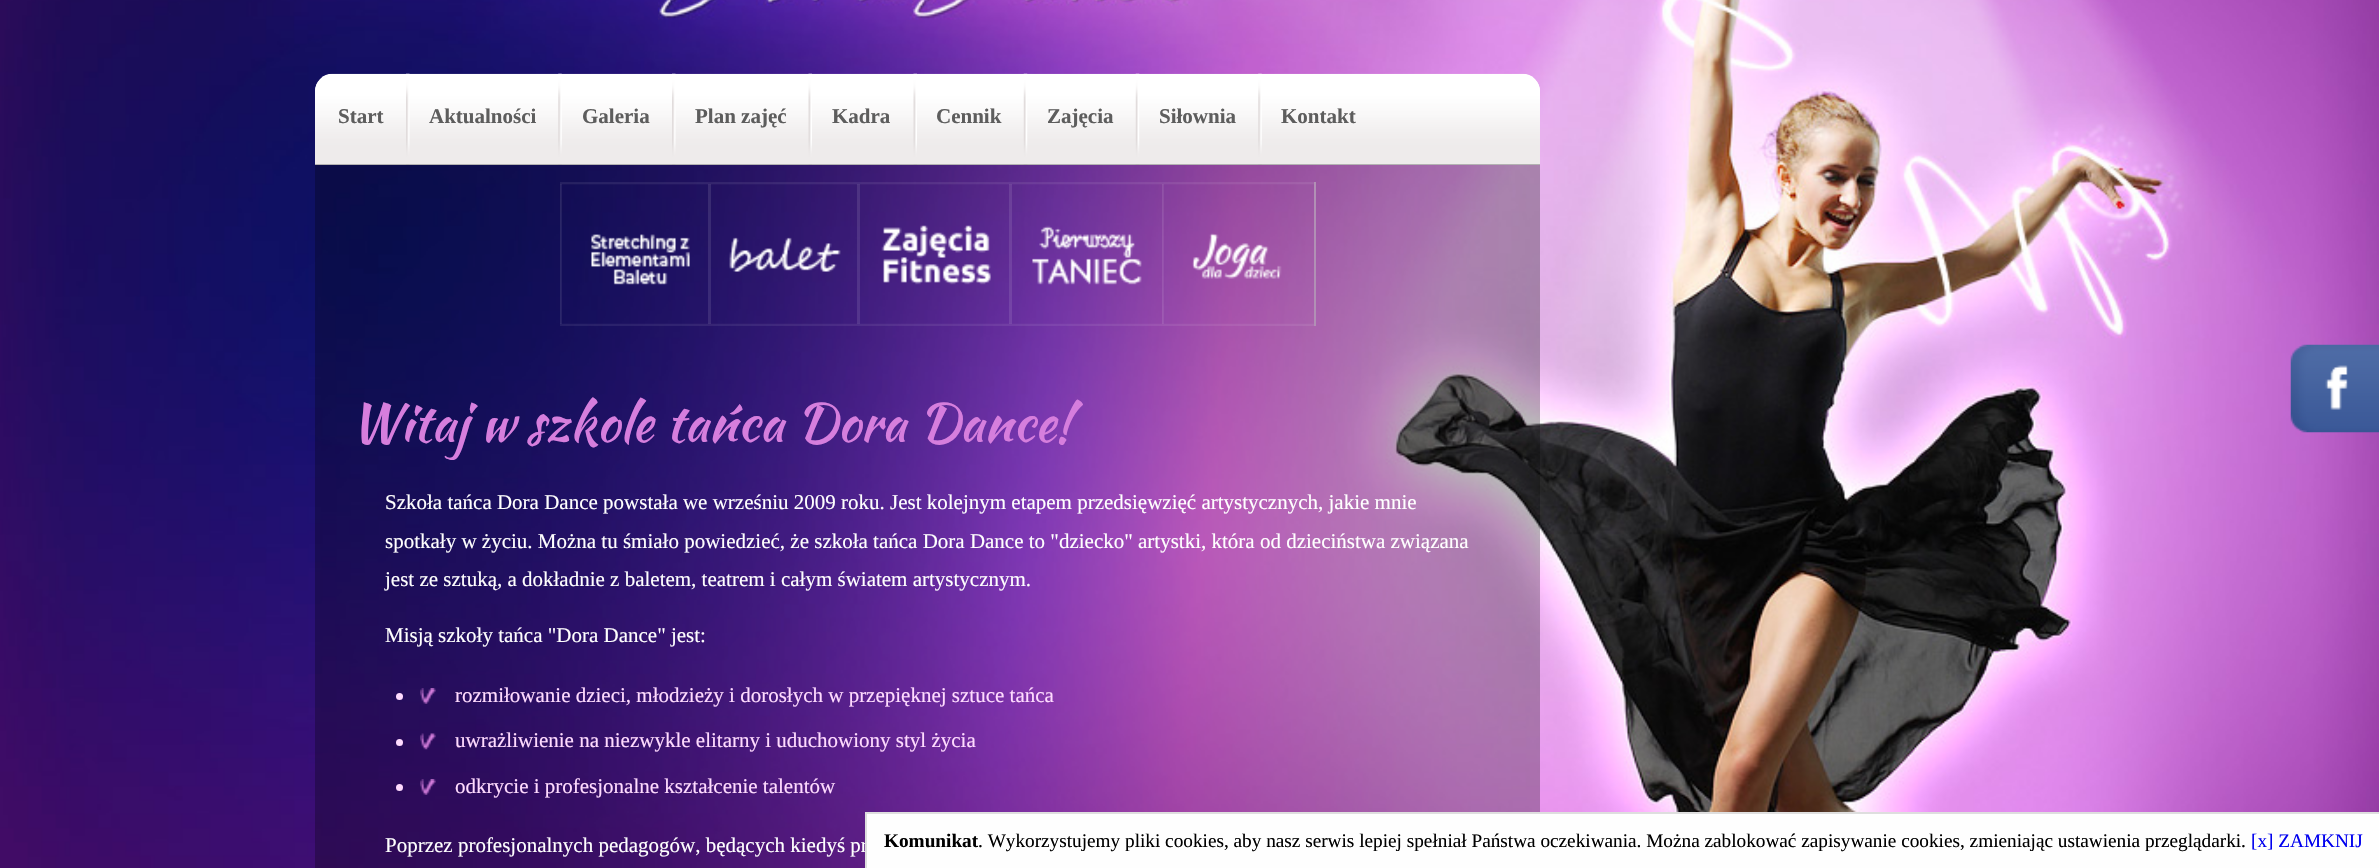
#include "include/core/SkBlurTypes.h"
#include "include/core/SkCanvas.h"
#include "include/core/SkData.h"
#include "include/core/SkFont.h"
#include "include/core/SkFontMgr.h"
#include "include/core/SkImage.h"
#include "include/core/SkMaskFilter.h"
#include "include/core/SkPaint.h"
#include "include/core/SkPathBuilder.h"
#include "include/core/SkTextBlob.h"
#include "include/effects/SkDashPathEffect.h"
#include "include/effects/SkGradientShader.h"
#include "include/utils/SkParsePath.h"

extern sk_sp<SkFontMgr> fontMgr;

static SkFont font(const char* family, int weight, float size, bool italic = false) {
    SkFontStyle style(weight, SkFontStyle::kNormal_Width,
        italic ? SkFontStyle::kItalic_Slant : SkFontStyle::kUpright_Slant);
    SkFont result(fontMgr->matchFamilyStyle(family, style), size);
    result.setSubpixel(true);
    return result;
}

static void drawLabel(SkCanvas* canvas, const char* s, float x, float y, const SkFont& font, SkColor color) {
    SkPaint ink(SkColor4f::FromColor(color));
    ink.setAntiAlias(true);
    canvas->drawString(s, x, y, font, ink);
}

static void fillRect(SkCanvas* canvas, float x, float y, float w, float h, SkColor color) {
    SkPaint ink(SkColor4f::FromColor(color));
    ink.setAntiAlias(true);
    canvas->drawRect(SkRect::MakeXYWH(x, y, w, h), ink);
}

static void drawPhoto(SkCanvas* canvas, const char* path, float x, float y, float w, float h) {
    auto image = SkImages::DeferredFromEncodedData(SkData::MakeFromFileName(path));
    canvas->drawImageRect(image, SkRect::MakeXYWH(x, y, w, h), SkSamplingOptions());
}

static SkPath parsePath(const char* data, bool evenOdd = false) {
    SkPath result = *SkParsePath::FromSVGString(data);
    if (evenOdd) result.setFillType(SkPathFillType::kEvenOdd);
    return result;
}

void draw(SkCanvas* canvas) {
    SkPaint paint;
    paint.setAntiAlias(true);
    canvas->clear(0xFFFFFFFF);
    drawPhoto(canvas, "assets/img1.png", 0, 0, 2379, 868);
    drawPhoto(canvas, "assets/img2.png", 658, 0, 532, 20);
    paint.setColor(0xFFFFFFFF);
    canvas->drawPath(parsePath("M333 74H1522C1532 74 1540 82 1540 92V165H315V92C315 82 323 74 333 74Z"), paint);
    drawPhoto(canvas, "assets/img3.png", 315, 73, 1225, 92);
    SkFont font1 = font("Liberation Serif", 700, 21);
    drawLabel(canvas, "Start", 338, 123, font1, 0xFF5D5D5D);
    drawPhoto(canvas, "assets/img4.png", 406, 73, 4, 92);
    drawLabel(canvas, "Aktualności", 429, 123, font1, 0xFF5D5D5D);
    drawPhoto(canvas, "assets/img5.png", 558, 73, 4, 92);
    drawLabel(canvas, "Galeria", 582, 123, font1, 0xFF5D5D5D);
    drawPhoto(canvas, "assets/img6.png", 672, 73, 4, 92);
    drawLabel(canvas, "Plan zajęć", 695, 123, font1, 0xFF5D5D5D);
    drawPhoto(canvas, "assets/img7.png", 808, 73, 4, 92);
    drawLabel(canvas, "Kadra", 832, 123, font1, 0xFF5D5D5D);
    drawPhoto(canvas, "assets/img8.png", 913, 73, 4, 92);
    drawLabel(canvas, "Cennik", 936, 123, font1, 0xFF5D5D5D);
    drawPhoto(canvas, "assets/img9.png", 1023, 73, 5, 92);
    drawLabel(canvas, "Zajęcia", 1047, 123, font1, 0xFF5D5D5D);
    drawPhoto(canvas, "assets/img10.png", 1135, 73, 5, 92);
    drawLabel(canvas, "Siłownia", 1159, 123, font1, 0xFF5D5D5D);
    drawPhoto(canvas, "assets/img11.png", 1258, 73, 4, 92);
    drawLabel(canvas, "Kontakt", 1281, 123, font1, 0xFF5D5D5D);
    fillRect(canvas, 315, 164, 1225, 704, 0x45000000);
    drawPhoto(canvas, "assets/img12.png", 560, 182, 754, 144);
    fillRect(canvas, 1314, 182, 2, 144, 0xFFB190B5);
    drawPhoto(canvas, "assets/img13.png", 560, 184, 2, 140);
    drawPhoto(canvas, "assets/img14.png", 591, 234, 99, 51);
    fillRect(canvas, 708, 184, 3, 140, 0x1AFFFFFF);
    drawPhoto(canvas, "assets/img15.png", 729, 237, 112, 35);
    fillRect(canvas, 857, 184, 3, 140, 0x1AFFFFFF);
    drawPhoto(canvas, "assets/img16.png", 881, 225, 110, 60);
    fillRect(canvas, 1009, 184, 3, 140, 0x1AFFFFFF);
    drawPhoto(canvas, "assets/img17.png", 1032, 225, 110, 60);
    drawPhoto(canvas, "assets/img18.png", 1162, 184, 2, 140);
    drawPhoto(canvas, "assets/img19.png", 1192, 233, 90, 46);
    SkFont font2 = font("Kaushan Script", 400, 52.5f);
    drawLabel(canvas, "Witaj w szkole tańca Dora Dance!", 350, 441, font2, 0xFFD67EDD);
    SkFont font3 = font("Liberation Serif", 400, 21);
    drawLabel(canvas, "Szkoła tańca Dora Dance powstała we wrześniu 2009 roku. Jest kolejnym etapem przedsięwzięć artystycznych, jakie mnie", 385, 509, font3, 0xFFFFFFFF);
    drawLabel(canvas, "spotkały w życiu. Można tu śmiało powiedzieć, że szkoła tańca Dora Dance to \"dziecko\" artystki, która od dzieciństwa związana", 385, 548, font3, 0xFFFFFFFF);
    drawLabel(canvas, "jest ze sztuką, a dokładnie z baletem, teatrem i całym światem artystycznym.", 385, 586, font3, 0xFFFFFFFF);
    drawLabel(canvas, "Misją szkoły tańca \"Dora Dance\" jest:", 385, 642, font3, 0xFFFFFFFF);
    drawPhoto(canvas, "assets/img20.png", 420, 688, 16, 16);
    paint.setColor(0xFFFFDBFF);
    canvas->drawCircle(399.5f, 696.5f, 3.5f, paint);
    drawLabel(canvas, "rozmiłowanie dzieci, młodzieży i dorosłych w przepięknej sztuce tańca", 455, 702, font3, 0xFFFFDBFF);
    drawPhoto(canvas, "assets/img21.png", 420, 733, 16, 17);
    canvas->drawCircle(399.5f, 742.5f, 3.5f, paint);
    drawLabel(canvas, "uwrażliwienie na niezwykle elitarny i uduchowiony styl życia", 455, 747, font3, 0xFFFFDBFF);
    drawPhoto(canvas, "assets/img22.png", 420, 779, 16, 16);
    canvas->drawCircle(399.5f, 787.5f, 3.5f, paint);
    drawLabel(canvas, "odkrycie i profesjonalne kształcenie talentów", 455, 793, font3, 0xFFFFDBFF);
    drawLabel(canvas, "Poprzez profesjonalnych pedagogów, będących kiedyś pr", 385, 852, font3, 0xFFFFFFFF);
    drawPhoto(canvas, "assets/img23.png", 2290, 344, 89, 89);
    fillRect(canvas, 867, 814, 1512, 54, 0xFFFEFEFE);
    fillRect(canvas, 865, 812, 1514, 2, 0xFFDEDEDE);
    fillRect(canvas, 865, 812, 2, 56, 0xFFDEDEDE);
    SkFont font4 = font("Liberation Serif", 700, 19.25f);
    drawLabel(canvas, "Komunikat", 884, 847, font4, 0xFF000000);
    SkFont font5 = font("Liberation Serif", 400, 19.25f);
    drawLabel(canvas, ". Wykorzystujemy pliki cookies, aby nasz serwis lepiej spełniał Państwa oczekiwania. Można zablokować zapisywanie cookies, zmieniając ustawienia przeglądarki.", 978, 847, font5, 0xFF000000);
    drawLabel(canvas, "[x] ZAMKNIJ", 2251, 847, font5, 0xFF0000EE);
}
